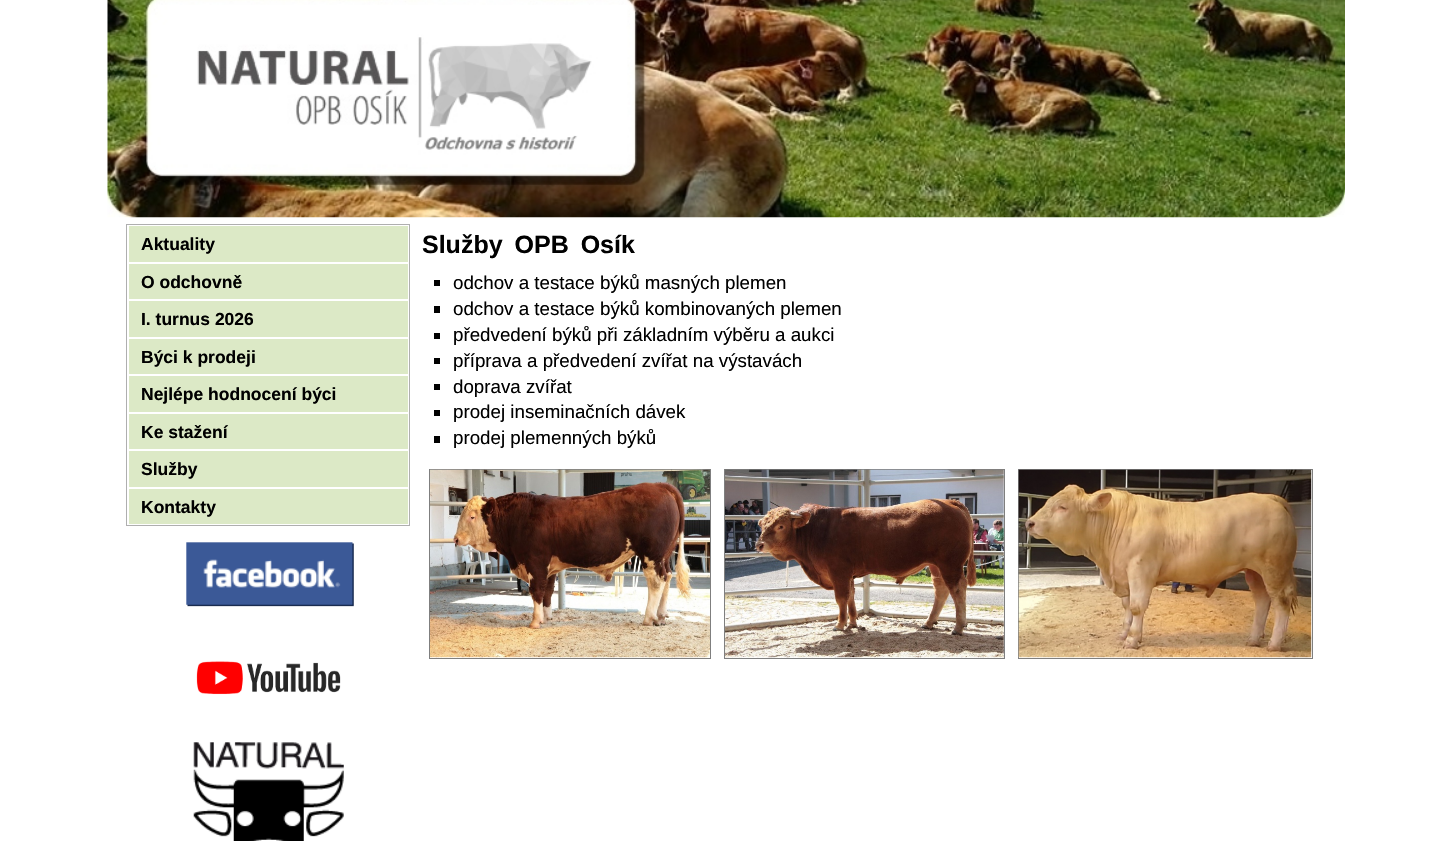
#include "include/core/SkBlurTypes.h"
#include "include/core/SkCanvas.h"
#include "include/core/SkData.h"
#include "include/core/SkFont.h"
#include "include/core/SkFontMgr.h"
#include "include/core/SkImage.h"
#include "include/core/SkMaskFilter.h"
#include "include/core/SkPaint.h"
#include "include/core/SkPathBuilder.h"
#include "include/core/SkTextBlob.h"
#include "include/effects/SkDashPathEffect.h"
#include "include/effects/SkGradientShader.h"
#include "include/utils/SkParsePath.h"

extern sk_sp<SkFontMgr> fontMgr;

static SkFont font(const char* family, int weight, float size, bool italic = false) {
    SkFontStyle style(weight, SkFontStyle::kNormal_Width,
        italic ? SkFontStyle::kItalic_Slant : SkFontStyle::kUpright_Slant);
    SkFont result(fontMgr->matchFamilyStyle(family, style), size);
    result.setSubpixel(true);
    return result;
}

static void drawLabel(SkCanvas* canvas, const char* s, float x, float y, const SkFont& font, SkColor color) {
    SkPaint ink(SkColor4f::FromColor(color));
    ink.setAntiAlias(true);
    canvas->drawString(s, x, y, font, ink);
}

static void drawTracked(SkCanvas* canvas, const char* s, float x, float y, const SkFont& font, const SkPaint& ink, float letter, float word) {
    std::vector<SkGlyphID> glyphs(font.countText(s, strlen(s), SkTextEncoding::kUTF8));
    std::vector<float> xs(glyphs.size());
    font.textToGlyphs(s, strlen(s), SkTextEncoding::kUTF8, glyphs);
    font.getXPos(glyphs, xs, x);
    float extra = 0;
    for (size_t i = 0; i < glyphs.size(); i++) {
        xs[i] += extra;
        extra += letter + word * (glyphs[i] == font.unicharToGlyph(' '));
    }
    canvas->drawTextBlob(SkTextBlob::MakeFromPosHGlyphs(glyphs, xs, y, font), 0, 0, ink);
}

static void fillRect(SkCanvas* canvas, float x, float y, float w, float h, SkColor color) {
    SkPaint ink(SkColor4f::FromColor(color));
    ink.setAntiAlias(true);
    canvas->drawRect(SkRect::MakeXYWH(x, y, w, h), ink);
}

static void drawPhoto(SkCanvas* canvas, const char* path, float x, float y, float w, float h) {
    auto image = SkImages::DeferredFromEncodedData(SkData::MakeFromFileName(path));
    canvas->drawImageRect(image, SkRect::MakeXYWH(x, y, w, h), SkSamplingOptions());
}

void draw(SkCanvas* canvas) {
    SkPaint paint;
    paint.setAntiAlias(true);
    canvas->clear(0xFFFFFFFF);
    drawPhoto(canvas, "assets/img1.png", 107, 0, 1238, 218);
    paint.setStroke(true);
    paint.setStrokeWidth(1);
    paint.setColor(0xFFAFAFAF);
    canvas->drawRect(SkRect::MakeXYWH(126.5f, 224.5f, 283, 301), paint);
    fillRect(canvas, 129, 226, 279, 36, 0xFFDCE9C6);
    SkFont font1 = font("Liberation Sans", 700, 17.5f);
    drawLabel(canvas, "Aktuality", 141, 250, font1, 0xFF000000);
    fillRect(canvas, 129, 264, 279, 35, 0xFFDCE9C6);
    drawLabel(canvas, "O odchovně", 141, 288, font1, 0xFF000000);
    fillRect(canvas, 129, 301, 279, 36, 0xFFDCE9C6);
    drawLabel(canvas, "I. turnus 2026", 141, 325, font1, 0xFF000000);
    fillRect(canvas, 129, 339, 279, 35, 0xFFDCE9C6);
    drawLabel(canvas, "Býci k prodeji", 141, 363, font1, 0xFF000000);
    fillRect(canvas, 129, 376, 279, 36, 0xFFDCE9C6);
    drawLabel(canvas, "Nejlépe hodnocení býci", 141, 400, font1, 0xFF000000);
    fillRect(canvas, 129, 414, 279, 35, 0xFFDCE9C6);
    drawLabel(canvas, "Ke stažení", 141, 438, font1, 0xFF000000);
    fillRect(canvas, 129, 451, 279, 36, 0xFFDCE9C6);
    drawLabel(canvas, "Služby", 141, 475, font1, 0xFF000000);
    fillRect(canvas, 129, 489, 279, 35, 0xFFDCE9C6);
    drawLabel(canvas, "Kontakty", 141, 513, font1, 0xFF000000);
    drawPhoto(canvas, "assets/img2.png", 186, 542, 168, 65);
    drawPhoto(canvas, "assets/img3.png", 196, 661, 145, 34);
    drawPhoto(canvas, "assets/img4.png", 193, 742, 151, 99);
    SkFont font2 = font("Liberation Sans", 700, 25);
    paint.setStroke(false);
    paint.setColor(0xFF000000);
    drawTracked(canvas, "Služby OPB Osík", 422, 253, font2, paint, 0, 5);
    fillRect(canvas, 434, 280, 6, 6, 0xFF000000);
    SkFont font3 = font("Liberation Sans", 400, 18.75f);
    drawLabel(canvas, "odchov a testace býků masných plemen", 453, 289, font3, 0xFF000000);
    fillRect(canvas, 434, 306, 6, 7, 0xFF000000);
    drawLabel(canvas, "odchov a testace býků kombinovaných plemen", 453, 315, font3, 0xFF000000);
    fillRect(canvas, 434, 333, 6, 6, 0xFF000000);
    drawLabel(canvas, "předvedení býků při základním výběru a aukci", 453, 341, font3, 0xFF000000);
    fillRect(canvas, 434, 358, 6, 6, 0xFF000000);
    drawLabel(canvas, "příprava a předvedení zvířat na výstavách", 453, 367, font3, 0xFF000000);
    fillRect(canvas, 434, 384, 6, 6, 0xFF000000);
    drawLabel(canvas, "doprava zvířat", 453, 393, font3, 0xFF000000);
    fillRect(canvas, 434, 410, 6, 6, 0xFF000000);
    drawLabel(canvas, "prodej inseminačních dávek", 453, 418, font3, 0xFF000000);
    fillRect(canvas, 434, 436, 6, 7, 0xFF000000);
    drawLabel(canvas, "prodej plemenných býků", 453, 444, font3, 0xFF000000);
    paint.setStroke(true);
    paint.setColor(0xFF7F7F7F);
    canvas->drawRect(SkRect::MakeXYWH(429.5f, 469.5f, 281, 189), paint);
    drawPhoto(canvas, "assets/img5.png", 430, 469, 280, 189);
    canvas->drawRect(SkRect::MakeXYWH(724.5f, 469.5f, 280, 189), paint);
    drawPhoto(canvas, "assets/img6.png", 725, 469, 279, 189);
    canvas->drawRect(SkRect::MakeXYWH(1018.5f, 469.5f, 294, 189), paint);
    drawPhoto(canvas, "assets/img7.png", 1018, 469, 294, 189);
}
